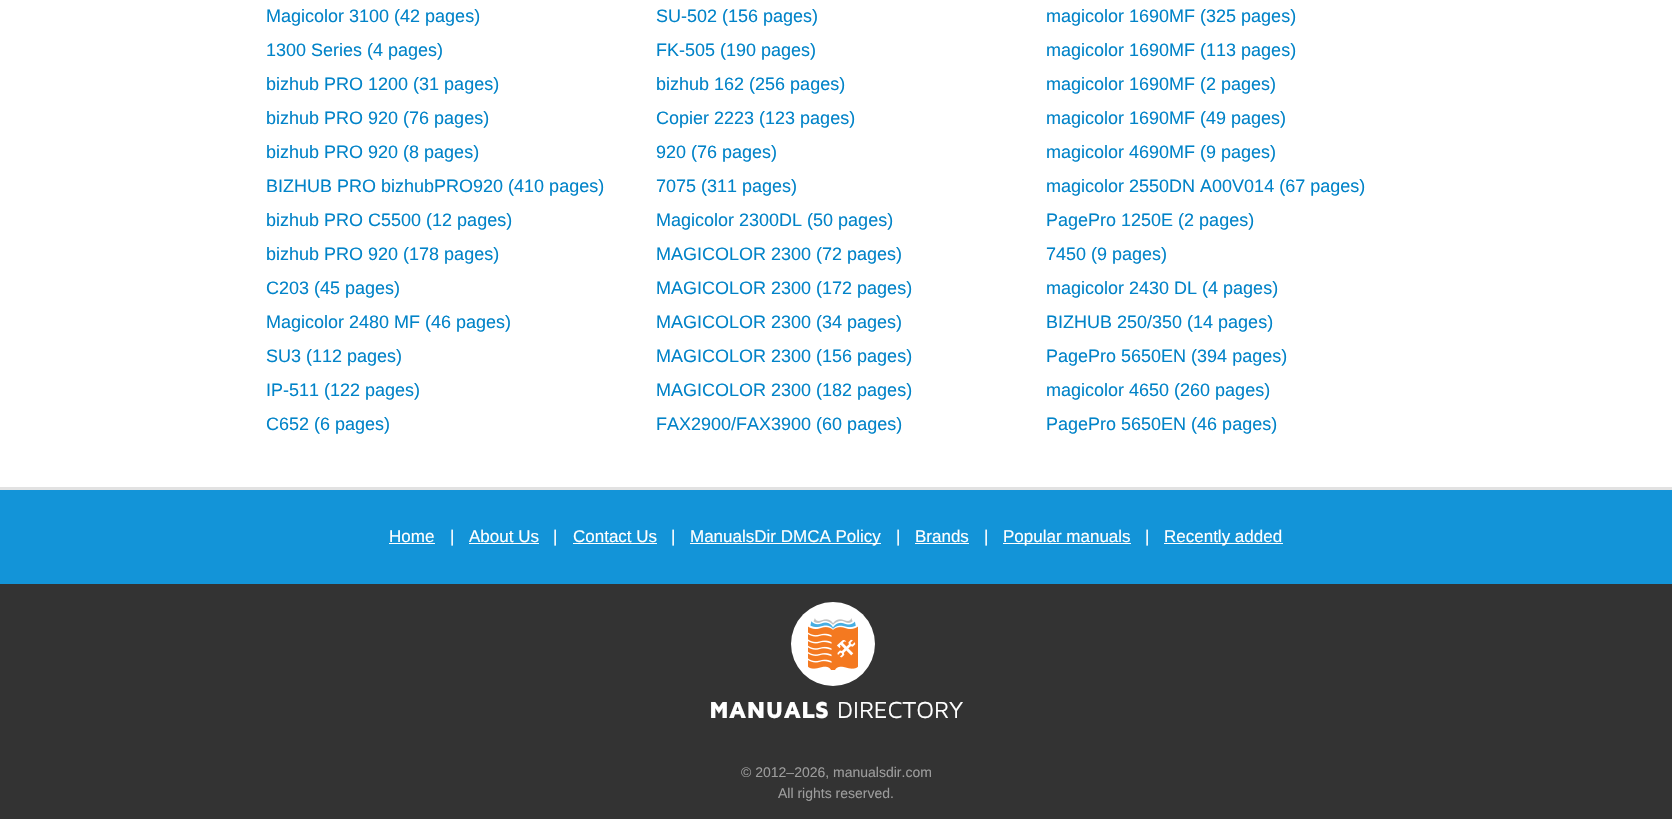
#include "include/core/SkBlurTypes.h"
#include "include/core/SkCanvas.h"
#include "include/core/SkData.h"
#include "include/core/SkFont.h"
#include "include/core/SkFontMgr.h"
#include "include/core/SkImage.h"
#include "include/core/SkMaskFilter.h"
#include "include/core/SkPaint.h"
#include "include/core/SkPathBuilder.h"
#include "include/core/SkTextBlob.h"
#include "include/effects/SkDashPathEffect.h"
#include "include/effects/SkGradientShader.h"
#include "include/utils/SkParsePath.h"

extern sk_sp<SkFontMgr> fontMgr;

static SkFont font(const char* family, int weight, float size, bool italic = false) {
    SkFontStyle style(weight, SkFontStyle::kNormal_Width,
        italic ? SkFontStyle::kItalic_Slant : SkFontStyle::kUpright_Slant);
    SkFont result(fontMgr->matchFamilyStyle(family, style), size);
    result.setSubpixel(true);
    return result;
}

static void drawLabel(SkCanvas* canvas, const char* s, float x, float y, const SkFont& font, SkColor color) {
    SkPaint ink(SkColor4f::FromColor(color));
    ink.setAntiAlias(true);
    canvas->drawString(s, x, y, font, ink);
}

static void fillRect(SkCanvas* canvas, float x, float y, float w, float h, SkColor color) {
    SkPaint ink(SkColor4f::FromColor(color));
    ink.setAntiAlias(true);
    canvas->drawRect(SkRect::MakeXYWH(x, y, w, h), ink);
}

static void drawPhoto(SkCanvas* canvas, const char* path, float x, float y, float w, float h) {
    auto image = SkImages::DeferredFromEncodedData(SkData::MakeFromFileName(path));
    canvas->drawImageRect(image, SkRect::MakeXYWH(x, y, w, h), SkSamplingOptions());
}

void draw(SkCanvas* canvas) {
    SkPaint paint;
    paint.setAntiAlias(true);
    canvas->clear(0xFF333333);
    fillRect(canvas, 0, 0, 1672, 487, 0xFFFFFFFF);
    fillRect(canvas, 0, 487, 1672, 3, 0xFFE2E2E2);
    SkFont font1 = font("Liberation Sans", 400, 18);
    drawLabel(canvas, "Magicolor 3100 (42 pages)", 266, 22, font1, 0xFF0183C8);
    drawLabel(canvas, "SU-502 (156 pages)", 656, 22, font1, 0xFF0183C8);
    drawLabel(canvas, "magicolor 1690MF (325 pages)", 1046, 22, font1, 0xFF0183C8);
    drawLabel(canvas, "1300 Series (4 pages)", 266, 56, font1, 0xFF0183C8);
    drawLabel(canvas, "FK-505 (190 pages)", 656, 56, font1, 0xFF0183C8);
    drawLabel(canvas, "magicolor 1690MF (113 pages)", 1046, 56, font1, 0xFF0183C8);
    drawLabel(canvas, "bizhub PRO 1200 (31 pages)", 266, 90, font1, 0xFF0183C8);
    drawLabel(canvas, "bizhub 162 (256 pages)", 656, 90, font1, 0xFF0183C8);
    drawLabel(canvas, "magicolor 1690MF (2 pages)", 1046, 90, font1, 0xFF0183C8);
    drawLabel(canvas, "bizhub PRO 920 (76 pages)", 266, 124, font1, 0xFF0183C8);
    drawLabel(canvas, "Copier 2223 (123 pages)", 656, 124, font1, 0xFF0183C8);
    drawLabel(canvas, "magicolor 1690MF (49 pages)", 1046, 124, font1, 0xFF0183C8);
    drawLabel(canvas, "bizhub PRO 920 (8 pages)", 266, 158, font1, 0xFF0183C8);
    drawLabel(canvas, "920 (76 pages)", 656, 158, font1, 0xFF0183C8);
    drawLabel(canvas, "magicolor 4690MF (9 pages)", 1046, 158, font1, 0xFF0183C8);
    drawLabel(canvas, "BIZHUB PRO bizhubPRO920 (410 pages)", 266, 192, font1, 0xFF0183C8);
    drawLabel(canvas, "7075 (311 pages)", 656, 192, font1, 0xFF0183C8);
    drawLabel(canvas, "magicolor 2550DN A00V014 (67 pages)", 1046, 192, font1, 0xFF0183C8);
    drawLabel(canvas, "bizhub PRO C5500 (12 pages)", 266, 226, font1, 0xFF0183C8);
    drawLabel(canvas, "Magicolor 2300DL (50 pages)", 656, 226, font1, 0xFF0183C8);
    drawLabel(canvas, "PagePro 1250E (2 pages)", 1046, 226, font1, 0xFF0183C8);
    drawLabel(canvas, "bizhub PRO 920 (178 pages)", 266, 260, font1, 0xFF0183C8);
    drawLabel(canvas, "MAGICOLOR 2300 (72 pages)", 656, 260, font1, 0xFF0183C8);
    drawLabel(canvas, "7450 (9 pages)", 1046, 260, font1, 0xFF0183C8);
    drawLabel(canvas, "C203 (45 pages)", 266, 294, font1, 0xFF0183C8);
    drawLabel(canvas, "MAGICOLOR 2300 (172 pages)", 656, 294, font1, 0xFF0183C8);
    drawLabel(canvas, "magicolor 2430 DL (4 pages)", 1046, 294, font1, 0xFF0183C8);
    drawLabel(canvas, "Magicolor 2480 MF (46 pages)", 266, 328, font1, 0xFF0183C8);
    drawLabel(canvas, "MAGICOLOR 2300 (34 pages)", 656, 328, font1, 0xFF0183C8);
    drawLabel(canvas, "BIZHUB 250/350 (14 pages)", 1046, 328, font1, 0xFF0183C8);
    drawLabel(canvas, "SU3 (112 pages)", 266, 362, font1, 0xFF0183C8);
    drawLabel(canvas, "MAGICOLOR 2300 (156 pages)", 656, 362, font1, 0xFF0183C8);
    drawLabel(canvas, "PagePro 5650EN (394 pages)", 1046, 362, font1, 0xFF0183C8);
    drawLabel(canvas, "IP-511 (122 pages)", 266, 396, font1, 0xFF0183C8);
    drawLabel(canvas, "MAGICOLOR 2300 (182 pages)", 656, 396, font1, 0xFF0183C8);
    drawLabel(canvas, "magicolor 4650 (260 pages)", 1046, 396, font1, 0xFF0183C8);
    drawLabel(canvas, "C652 (6 pages)", 266, 430, font1, 0xFF0183C8);
    drawLabel(canvas, "FAX2900/FAX3900 (60 pages)", 656, 430, font1, 0xFF0183C8);
    drawLabel(canvas, "PagePro 5650EN (46 pages)", 1046, 430, font1, 0xFF0183C8);
    fillRect(canvas, 0, 490, 1672, 94, 0xFF1394D8);
    SkFont font2 = font("Liberation Sans", 400, 17);
    drawLabel(canvas, "Home", 389, 542, font2, 0xFFFFFFFF);
    fillRect(canvas, 389, 543, 46, 1, 0xFFFFFFFF);
    drawLabel(canvas, "|", 450, 542, font2, 0xFFFFFFFF);
    drawLabel(canvas, "About Us", 469, 542, font2, 0xFFFFFFFF);
    fillRect(canvas, 469, 543, 70, 1, 0xFFFFFFFF);
    drawLabel(canvas, "|", 553, 542, font2, 0xFFFFFFFF);
    drawLabel(canvas, "Contact Us", 573, 542, font2, 0xFFFFFFFF);
    fillRect(canvas, 573, 543, 84, 1, 0xFFFFFFFF);
    drawLabel(canvas, "|", 671, 542, font2, 0xFFFFFFFF);
    fillRect(canvas, 690, 543, 191, 1, 0xFFFFFFFF);
    drawLabel(canvas, "ManualsDir DMCA Policy", 690, 542, font2, 0xFFFFFFFF);
    drawLabel(canvas, "|", 896, 542, font2, 0xFFFFFFFF);
    drawLabel(canvas, "Brands", 915, 542, font2, 0xFFFFFFFF);
    fillRect(canvas, 915, 543, 54, 1, 0xFFFFFFFF);
    drawLabel(canvas, "|", 984, 542, font2, 0xFFFFFFFF);
    fillRect(canvas, 1003, 543, 128, 1, 0xFFFFFFFF);
    drawLabel(canvas, "Popular manuals", 1003, 542, font2, 0xFFFFFFFF);
    drawLabel(canvas, "|", 1145, 542, font2, 0xFFFFFFFF);
    fillRect(canvas, 1164, 543, 119, 1, 0xFFFFFFFF);
    drawLabel(canvas, "Recently added", 1164, 542, font2, 0xFFFFFFFF);
    paint.setColor(0xFFFFFFFF);
    canvas->drawCircle(833, 644, 42, paint);
    drawPhoto(canvas, "assets/img1.png", 808, 618, 50, 52);
    SkFont font3 = font("Maven Pro", 900, 24);
    drawLabel(canvas, "MANUALS", 709, 718, font3, 0xFFFFFFFF);
    SkFont font4 = font("Maven Pro", 400, 24);
    drawLabel(canvas, "DIRECTORY", 837, 718, font4, 0xFFFFFFFF);
    SkFont font5 = font("Liberation Sans", 400, 14);
    drawLabel(canvas, "© 2012–2026, manualsdir.com", 741, 777, font5, 0xFF9C9C9C);
    drawLabel(canvas, "All rights reserved.", 778, 798, font5, 0xFF9C9C9C);
}
